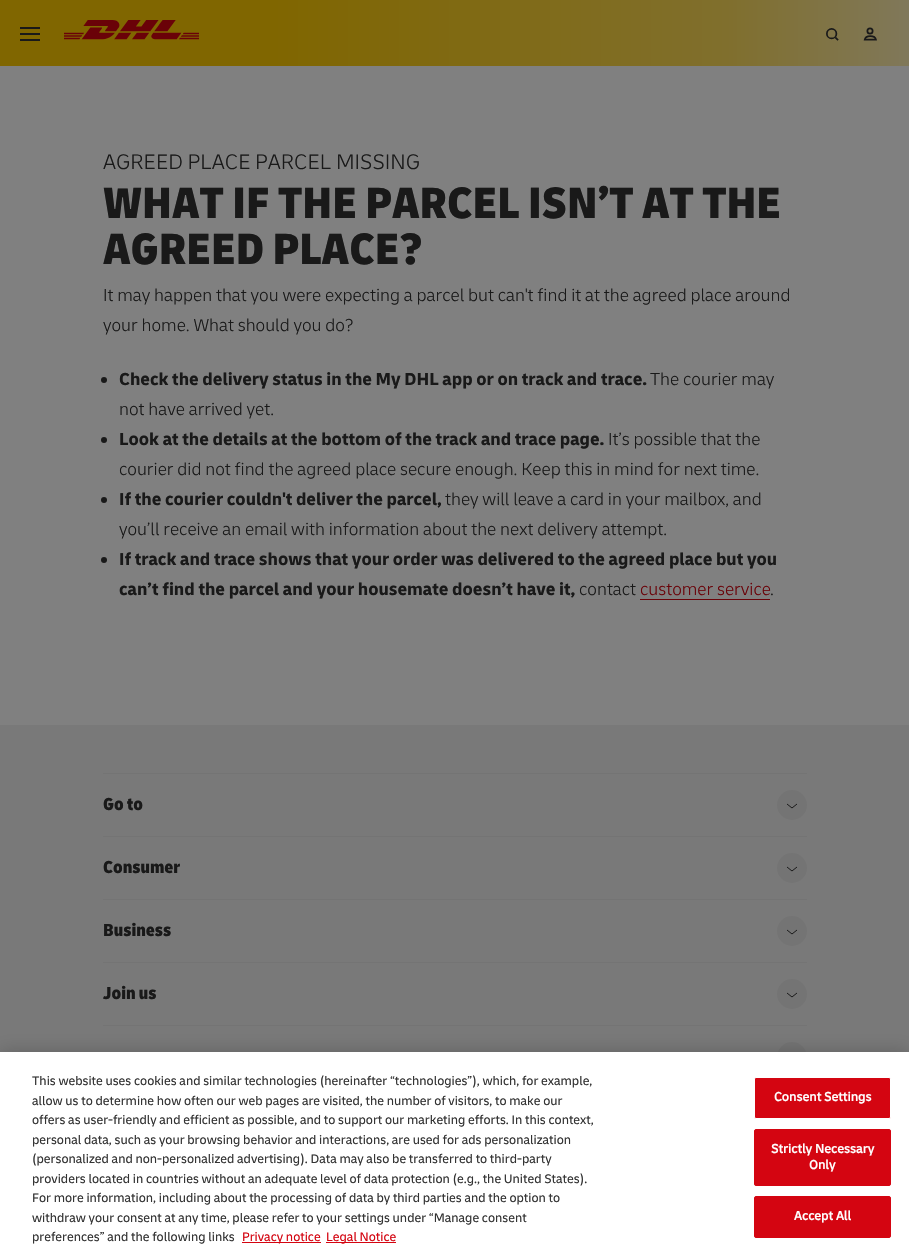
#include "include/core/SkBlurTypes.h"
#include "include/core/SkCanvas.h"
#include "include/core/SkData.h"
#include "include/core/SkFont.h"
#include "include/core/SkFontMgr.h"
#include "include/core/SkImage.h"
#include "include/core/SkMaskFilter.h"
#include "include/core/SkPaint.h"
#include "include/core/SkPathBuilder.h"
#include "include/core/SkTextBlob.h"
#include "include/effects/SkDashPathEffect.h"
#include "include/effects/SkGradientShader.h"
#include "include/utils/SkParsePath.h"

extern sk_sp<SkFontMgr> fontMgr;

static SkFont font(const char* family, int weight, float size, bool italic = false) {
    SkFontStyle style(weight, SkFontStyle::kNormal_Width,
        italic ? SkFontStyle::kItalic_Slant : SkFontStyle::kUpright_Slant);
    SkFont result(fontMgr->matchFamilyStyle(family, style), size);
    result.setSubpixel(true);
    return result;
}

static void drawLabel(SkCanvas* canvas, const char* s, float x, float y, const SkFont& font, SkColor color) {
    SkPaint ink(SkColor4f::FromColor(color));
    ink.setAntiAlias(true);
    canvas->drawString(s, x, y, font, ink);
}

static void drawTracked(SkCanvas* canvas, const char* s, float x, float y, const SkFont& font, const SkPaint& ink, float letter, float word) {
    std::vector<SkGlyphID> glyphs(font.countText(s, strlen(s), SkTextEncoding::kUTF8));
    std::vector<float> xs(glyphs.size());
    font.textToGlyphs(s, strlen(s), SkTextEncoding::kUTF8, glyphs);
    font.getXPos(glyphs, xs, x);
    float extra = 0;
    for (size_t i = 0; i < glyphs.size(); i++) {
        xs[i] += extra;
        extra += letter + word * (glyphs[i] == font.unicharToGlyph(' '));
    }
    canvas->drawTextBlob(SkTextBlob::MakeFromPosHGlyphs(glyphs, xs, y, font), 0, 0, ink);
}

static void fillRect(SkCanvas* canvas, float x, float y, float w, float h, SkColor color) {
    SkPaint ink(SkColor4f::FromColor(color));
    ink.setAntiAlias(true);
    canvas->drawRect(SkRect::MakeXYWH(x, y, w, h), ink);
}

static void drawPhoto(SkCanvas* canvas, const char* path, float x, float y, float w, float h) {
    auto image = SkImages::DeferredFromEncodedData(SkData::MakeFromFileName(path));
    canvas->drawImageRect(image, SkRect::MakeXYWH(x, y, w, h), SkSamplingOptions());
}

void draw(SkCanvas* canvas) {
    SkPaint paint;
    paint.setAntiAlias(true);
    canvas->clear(0xFF808080);
    {
        const SkColor colors[] = {0xFF806600, 0xFF806600, 0xFF806F2D, 0xFF80785A};
        const float stops[] = {0, 0.3f, 0.8f, 1};
        const SkPoint ends[] = {{0, 33}, {909, 33}};
        paint.setShader(SkGradientShader::MakeLinear(ends, colors, stops, 4, SkTileMode::kClamp));
        paint.setAlpha(255);
    }
    canvas->drawRect(SkRect::MakeXYWH(0, 0, 909, 66), paint);
    fillRect(canvas, 20, 27, 20, 2, 0xFF191919);
    fillRect(canvas, 20, 39, 20, 2, 0xFF191919);
    fillRect(canvas, 20, 33, 20, 2, 0xFF191919);
    drawPhoto(canvas, "assets/img1.png", 64, 20, 135, 20);
    drawPhoto(canvas, "assets/img2.png", 826, 28, 13, 13);
    drawPhoto(canvas, "assets/img3.png", 863, 27, 14, 14);
    SkFont font1 = font("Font", 300, 22);
    drawLabel(canvas, "AGREED PLACE PARCEL MISSING", 103, 169, font1, 0xFF191919);
    SkFont font2 = font("Font", 800, 46);
    drawLabel(canvas, "WHAT IF THE PARCEL ISN’T AT THE", 103, 218, font2, 0xFF191919);
    drawLabel(canvas, "AGREED PLACE?", 103, 264, font2, 0xFF191919);
    SkFont font3 = font("Font", 300, 18);
    drawLabel(canvas, "It may happen that you were expecting a parcel but can't find it at the agreed place around", 103, 301, font3, 0xFF191919);
    drawLabel(canvas, "your home. What should you do?", 103, 331, font3, 0xFF191919);
    paint.setShader(nullptr);
    paint.setColor(0xFF191919);
    canvas->drawCircle(104, 380, 3, paint);
    SkFont font4 = font("Font", 700, 18);
    drawLabel(canvas, "Check the delivery status in the My DHL app or on track and trace.", 119, 385, font4, 0xFF191919);
    drawLabel(canvas, "The courier may", 650, 385, font3, 0xFF191919);
    drawLabel(canvas, "not have arrived yet.", 119, 415, font3, 0xFF191919);
    canvas->drawCircle(104, 440, 3, paint);
    drawLabel(canvas, "Look at the details at the bottom of the track and trace page.", 119, 445, font4, 0xFF191919);
    drawLabel(canvas, "It’s possible that the", 608, 445, font3, 0xFF191919);
    drawLabel(canvas, "courier did not find the agreed place secure enough. Keep this in mind for next time.", 119, 475, font3, 0xFF191919);
    canvas->drawCircle(104, 500, 3, paint);
    drawLabel(canvas, "If the courier couldn't deliver the parcel,", 119, 505, font4, 0xFF191919);
    drawLabel(canvas, "they will leave a card in your mailbox, and", 445, 505, font3, 0xFF191919);
    drawLabel(canvas, "you’ll receive an email with information about the next delivery attempt.", 119, 535, font3, 0xFF191919);
    canvas->drawCircle(104, 560, 3, paint);
    drawLabel(canvas, "If track and trace shows that your order was delivered to the agreed place but you", 119, 565, font4, 0xFF191919);
    drawLabel(canvas, "can’t find the parcel and your housemate doesn’t have it,", 119, 595, font4, 0xFF191919);
    drawLabel(canvas, "contact", 579, 595, font3, 0xFF191919);
    drawLabel(canvas, "customer service", 640, 595, font3, 0xFF6A0309);
    fillRect(canvas, 640, 599, 130, 1, 0xFF6A0309);
    drawLabel(canvas, ".", 770, 595, font3, 0xFF191919);
    fillRect(canvas, 0, 725, 909, 327, 0xFF797979);
    fillRect(canvas, 103, 773, 704, 1, 0xFF747474);
    SkFont font5 = font("Font", 800, 18);
    drawLabel(canvas, "Go to", 103, 810, font5, 0xFF191919);
    paint.setColor(0xFF747474);
    canvas->drawCircle(792, 805, 15, paint);
    drawPhoto(canvas, "assets/img4.png", 787, 803, 10, 6);
    fillRect(canvas, 103, 836, 704, 1, 0xFF747474);
    drawLabel(canvas, "Consumer", 103, 873, font5, 0xFF191919);
    canvas->drawCircle(792, 868, 15, paint);
    drawPhoto(canvas, "assets/img4.png", 787, 866, 10, 6);
    fillRect(canvas, 103, 899, 704, 1, 0xFF747474);
    drawLabel(canvas, "Business", 103, 936, font5, 0xFF191919);
    canvas->drawCircle(792, 931, 15, paint);
    drawPhoto(canvas, "assets/img4.png", 787, 929, 10, 6);
    fillRect(canvas, 103, 962, 704, 1, 0xFF747474);
    drawLabel(canvas, "Join us", 103, 999, font5, 0xFF191919);
    canvas->drawCircle(792, 994, 15, paint);
    drawPhoto(canvas, "assets/img4.png", 787, 992, 10, 6);
    fillRect(canvas, 103, 1025, 704, 1, 0xFF747474);
    canvas->drawCircle(792, 1057, 15, paint);
    paint.setColor(0x33000000);
    paint.setMaskFilter(SkMaskFilter::MakeBlur(kNormal_SkBlurStyle, 9));
    canvas->drawRect(SkRect::MakeXYWH(0, 1052, 909, 206), paint);
    paint.setMaskFilter(nullptr);
    fillRect(canvas, 0, 1052, 909, 206, 0xFFFFFFFF);
    SkFont font6 = font("Font", 400, 13);
    drawLabel(canvas, "This website uses cookies and similar technologies (hereinafter “technologies”), which, for example,", 32, 1085, font6, 0xFF333333);
    drawLabel(canvas, "allow us to determine how often our web pages are visited, the number of visitors, to make our", 32, 1105, font6, 0xFF333333);
    drawLabel(canvas, "offers as user-friendly and efficient as possible, and to support our marketing efforts. In this context,", 32, 1124, font6, 0xFF333333);
    drawLabel(canvas, "personal data, such as your browsing behavior and interactions, are used for ads personalization", 32, 1144, font6, 0xFF333333);
    drawLabel(canvas, "(personalized and non-personalized advertising). Data may also be transferred to third-party", 32, 1163, font6, 0xFF333333);
    drawLabel(canvas, "providers located in countries without an adequate level of data protection (e.g., the United States).", 32, 1183, font6, 0xFF333333);
    drawLabel(canvas, "For more information, including about the processing of data by third parties and the option to", 32, 1202, font6, 0xFF333333);
    drawLabel(canvas, "withdraw your consent at any time, please refer to your settings under “Manage consent", 32, 1222, font6, 0xFF333333);
    drawLabel(canvas, "preferences” and the following links", 32, 1241, font6, 0xFF333333);
    fillRect(canvas, 242, 1242, 79, 1, 0xFFD40511);
    drawLabel(canvas, "Privacy notice", 242, 1241, font6, 0xFFD40511);
    fillRect(canvas, 326, 1242, 70, 1, 0xFFD40511);
    drawLabel(canvas, "Legal Notice", 326, 1241, font6, 0xFFD40511);
    paint.setColor(0xFFD40511);
    canvas->drawRoundRect(SkRect::MakeXYWH(754.5f, 1077.5f, 136, 41), 1.5f, 1.5f, paint);
    paint.setStroke(true);
    paint.setStrokeWidth(1);
    paint.setColor(0xFFFFFFFF);
    canvas->drawRoundRect(SkRect::MakeXYWH(754.5f, 1077.5f, 136, 41), 1.5f, 1.5f, paint);
    SkFont font7 = font("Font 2", 700, 13);
    paint.setStroke(false);
    drawTracked(canvas, "Consent Settings", 774, 1101, font7, paint, 0.1f, 0);
    paint.setColor(0xFFD40511);
    canvas->drawRoundRect(SkRect::MakeXYWH(754.5f, 1129.5f, 136, 56), 1.5f, 1.5f, paint);
    paint.setStroke(true);
    canvas->drawRoundRect(SkRect::MakeXYWH(754.5f, 1129.5f, 136, 56), 1.5f, 1.5f, paint);
    paint.setStroke(false);
    paint.setColor(0xFFFFFFFF);
    drawTracked(canvas, "Strictly Necessary", 771, 1153, font7, paint, 0.1f, 0);
    drawTracked(canvas, "Only", 809, 1169, font7, paint, 0.1f, 0);
    paint.setColor(0xFFD40511);
    canvas->drawRoundRect(SkRect::MakeXYWH(754.5f, 1196.5f, 136, 41), 1.5f, 1.5f, paint);
    paint.setStroke(true);
    canvas->drawRoundRect(SkRect::MakeXYWH(754.5f, 1196.5f, 136, 41), 1.5f, 1.5f, paint);
    paint.setStroke(false);
    paint.setColor(0xFFFFFFFF);
    drawTracked(canvas, "Accept All", 794, 1220, font7, paint, 0.1f, 0);
}
